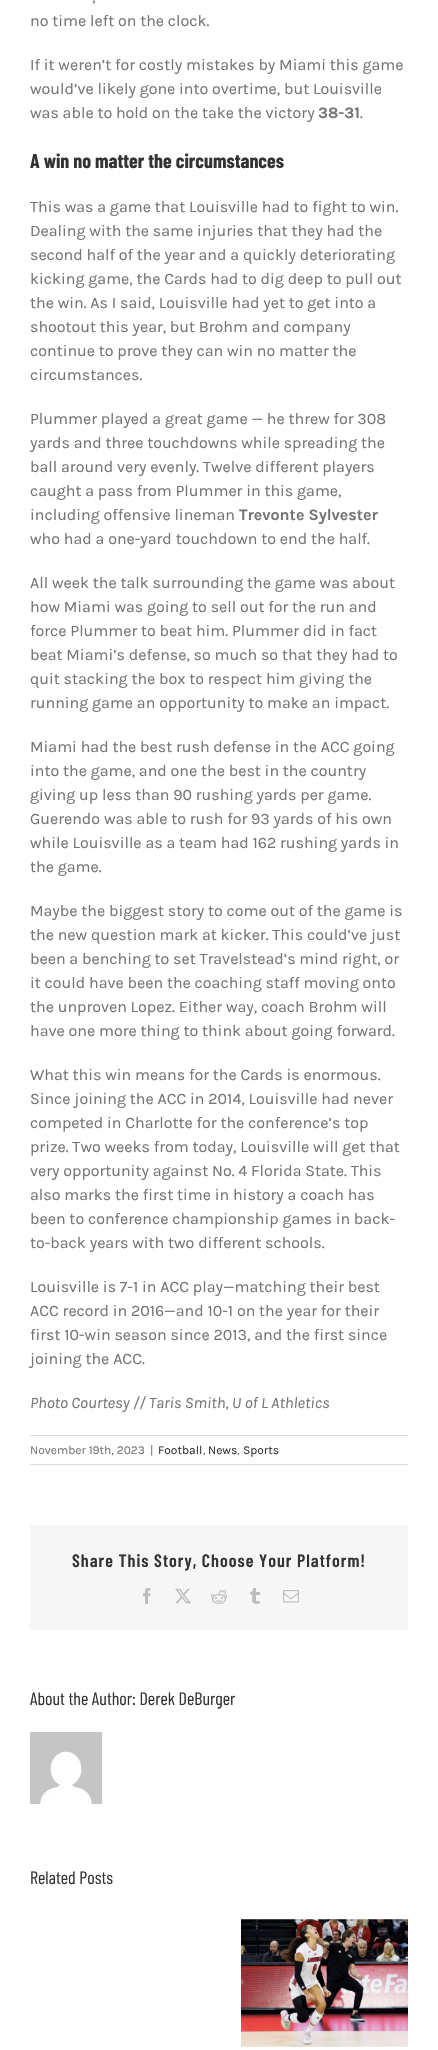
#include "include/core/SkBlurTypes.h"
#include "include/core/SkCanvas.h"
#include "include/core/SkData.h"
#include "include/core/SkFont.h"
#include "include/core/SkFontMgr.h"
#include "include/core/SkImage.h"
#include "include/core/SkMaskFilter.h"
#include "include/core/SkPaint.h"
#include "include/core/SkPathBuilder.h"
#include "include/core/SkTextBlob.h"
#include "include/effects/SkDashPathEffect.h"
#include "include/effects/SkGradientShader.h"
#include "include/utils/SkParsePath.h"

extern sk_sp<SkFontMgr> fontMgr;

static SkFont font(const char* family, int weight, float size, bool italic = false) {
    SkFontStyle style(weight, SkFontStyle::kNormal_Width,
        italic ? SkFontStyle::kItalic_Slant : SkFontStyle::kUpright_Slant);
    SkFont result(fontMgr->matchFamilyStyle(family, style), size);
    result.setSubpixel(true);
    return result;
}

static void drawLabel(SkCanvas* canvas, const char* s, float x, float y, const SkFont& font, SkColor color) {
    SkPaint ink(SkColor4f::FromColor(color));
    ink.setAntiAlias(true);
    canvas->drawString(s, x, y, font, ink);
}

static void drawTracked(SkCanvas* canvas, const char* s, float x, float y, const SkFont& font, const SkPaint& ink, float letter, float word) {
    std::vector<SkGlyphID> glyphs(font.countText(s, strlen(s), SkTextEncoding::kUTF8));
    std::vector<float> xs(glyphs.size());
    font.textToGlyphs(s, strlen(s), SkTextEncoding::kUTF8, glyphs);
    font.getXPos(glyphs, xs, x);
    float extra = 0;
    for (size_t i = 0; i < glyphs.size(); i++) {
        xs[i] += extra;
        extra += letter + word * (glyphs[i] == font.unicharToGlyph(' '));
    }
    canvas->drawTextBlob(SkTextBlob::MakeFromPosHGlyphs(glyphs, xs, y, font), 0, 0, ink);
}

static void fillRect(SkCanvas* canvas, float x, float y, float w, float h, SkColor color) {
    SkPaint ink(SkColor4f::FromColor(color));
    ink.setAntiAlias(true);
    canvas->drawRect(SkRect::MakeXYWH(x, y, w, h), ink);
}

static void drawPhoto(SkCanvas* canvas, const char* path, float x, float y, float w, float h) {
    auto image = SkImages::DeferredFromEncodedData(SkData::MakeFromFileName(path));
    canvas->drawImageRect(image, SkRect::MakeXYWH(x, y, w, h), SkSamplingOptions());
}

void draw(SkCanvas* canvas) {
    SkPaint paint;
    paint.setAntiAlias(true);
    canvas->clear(0xFFFFFFFF);
    SkFont font1 = font("Karla", 400, 16);
    drawLabel(canvas, ",", 92, 2, font1, 0xFF747474);
    drawLabel(canvas, "no time left on the clock.", 30, 26, font1, 0xFF747474);
    drawLabel(canvas, "If it weren’t for costly mistakes by Miami this game", 30, 70, font1, 0xFF747474);
    drawLabel(canvas, "would’ve likely gone into overtime, but Louisville", 30, 94, font1, 0xFF747474);
    drawLabel(canvas, "was able to hold on the take the victory", 30, 118, font1, 0xFF747474);
    SkFont font2 = font("Karla", 700, 16);
    drawLabel(canvas, "38-31", 318, 118, font2, 0xFF747474);
    drawLabel(canvas, ".", 360, 118, font1, 0xFF747474);
    SkFont font3 = font("Barlow Condensed", 700, 20);
    drawLabel(canvas, "A win no matter the circumstances", 30, 168, font3, 0xFF333333);
    drawLabel(canvas, "This was a game that Louisville had to fight to win.", 30, 212, font1, 0xFF747474);
    drawLabel(canvas, "Dealing with the same injuries that they had the", 30, 236, font1, 0xFF747474);
    drawLabel(canvas, "second half of the year and a quickly deteriorating", 30, 260, font1, 0xFF747474);
    drawLabel(canvas, "kicking game, the Cards had to dig deep to pull out", 30, 284, font1, 0xFF747474);
    drawLabel(canvas, "the win. As I said, Louisville had yet to get into a", 30, 308, font1, 0xFF747474);
    drawLabel(canvas, "shootout this year, but Brohm and company", 30, 332, font1, 0xFF747474);
    drawLabel(canvas, "continue to prove they can win no matter the", 30, 356, font1, 0xFF747474);
    drawLabel(canvas, "circumstances.", 30, 380, font1, 0xFF747474);
    drawLabel(canvas, "Plummer played a great game — he threw for 308", 30, 424, font1, 0xFF747474);
    drawLabel(canvas, "yards and three touchdowns while spreading the", 30, 448, font1, 0xFF747474);
    drawLabel(canvas, "ball around very evenly. Twelve different players", 30, 472, font1, 0xFF747474);
    drawLabel(canvas, "caught a pass from Plummer in this game,", 30, 496, font1, 0xFF747474);
    drawLabel(canvas, "including offensive lineman", 30, 520, font1, 0xFF747474);
    drawLabel(canvas, "Trevonte Sylvester", 239, 520, font2, 0xFF747474);
    drawLabel(canvas, "who had a one-yard touchdown to end the half.", 30, 544, font1, 0xFF747474);
    drawLabel(canvas, "All week the talk surrounding the game was about", 30, 588, font1, 0xFF747474);
    drawLabel(canvas, "how Miami was going to sell out for the run and", 30, 612, font1, 0xFF747474);
    drawLabel(canvas, "force Plummer to beat him. Plummer did in fact", 30, 636, font1, 0xFF747474);
    drawLabel(canvas, "beat Miami’s defense, so much so that they had to", 30, 660, font1, 0xFF747474);
    drawLabel(canvas, "quit stacking the box to respect him giving the", 30, 684, font1, 0xFF747474);
    drawLabel(canvas, "running game an opportunity to make an impact.", 30, 708, font1, 0xFF747474);
    drawLabel(canvas, "Miami had the best rush defense in the ACC going", 30, 752, font1, 0xFF747474);
    drawLabel(canvas, "into the game, and one the best in the country", 30, 776, font1, 0xFF747474);
    drawLabel(canvas, "giving up less than 90 rushing yards per game.", 30, 800, font1, 0xFF747474);
    drawLabel(canvas, "Guerendo was able to rush for 93 yards of his own", 30, 824, font1, 0xFF747474);
    drawLabel(canvas, "while Louisville as a team had 162 rushing yards in", 30, 848, font1, 0xFF747474);
    drawLabel(canvas, "the game.", 30, 872, font1, 0xFF747474);
    drawLabel(canvas, "Maybe the biggest story to come out of the game is", 30, 916, font1, 0xFF747474);
    drawLabel(canvas, "the new question mark at kicker. This could’ve just", 30, 940, font1, 0xFF747474);
    drawLabel(canvas, "been a benching to set Travelstead’s mind right, or", 30, 964, font1, 0xFF747474);
    drawLabel(canvas, "it could have been the coaching staff moving onto", 30, 988, font1, 0xFF747474);
    drawLabel(canvas, "the unproven Lopez. Either way, coach Brohm will", 30, 1012, font1, 0xFF747474);
    drawLabel(canvas, "have one more thing to think about going forward.", 30, 1036, font1, 0xFF747474);
    drawLabel(canvas, "What this win means for the Cards is enormous.", 30, 1080, font1, 0xFF747474);
    drawLabel(canvas, "Since joining the ACC in 2014, Louisville had never", 30, 1104, font1, 0xFF747474);
    drawLabel(canvas, "competed in Charlotte for the conference’s top", 30, 1128, font1, 0xFF747474);
    drawLabel(canvas, "prize. Two weeks from today, Louisville will get that", 30, 1152, font1, 0xFF747474);
    drawLabel(canvas, "very opportunity against No. 4 Florida State. This", 30, 1176, font1, 0xFF747474);
    drawLabel(canvas, "also marks the first time in history a coach has", 30, 1200, font1, 0xFF747474);
    drawLabel(canvas, "been to conference championship games in back-", 30, 1224, font1, 0xFF747474);
    drawLabel(canvas, "to-back years with two different schools.", 30, 1248, font1, 0xFF747474);
    drawLabel(canvas, "Louisville is 7-1 in ACC play—matching their best", 30, 1292, font1, 0xFF747474);
    drawLabel(canvas, "ACC record in 2016—and 10-1 on the year for their", 30, 1316, font1, 0xFF747474);
    drawLabel(canvas, "first 10-win season since 2013, and the first since", 30, 1340, font1, 0xFF747474);
    drawLabel(canvas, "joining the ACC.", 30, 1364, font1, 0xFF747474);
    SkFont font4 = font("Karla", 400, 16, true);
    drawLabel(canvas, "Photo Courtesy // Taris Smith, U of L Athletics", 30, 1408, font4, 0xFF747474);
    fillRect(canvas, 30, 1435, 378, 1, 0xFFDDDBDB);
    fillRect(canvas, 30, 1464, 378, 1, 0xFFDDDBDB);
    SkFont font5 = font("Karla", 400, 12);
    drawLabel(canvas, "November 19th, 2023", 30, 1454, font5, 0xFF747474);
    drawLabel(canvas, "|", 150, 1454, font5, 0xFF747474);
    drawLabel(canvas, "Football", 158, 1454, font5, 0xFF333333);
    drawLabel(canvas, ",", 203, 1454, font5, 0xFF747474);
    drawLabel(canvas, "News", 208, 1454, font5, 0xFF333333);
    drawLabel(canvas, ",", 237, 1454, font5, 0xFF747474);
    drawLabel(canvas, "Sports", 243, 1454, font5, 0xFF333333);
    fillRect(canvas, 30, 1525, 378, 105, 0xFFF6F6F6);
    SkFont font6 = font("Barlow Condensed", 600, 18);
    paint.setColor(0xFF333333);
    drawTracked(canvas, "Share This Story, Choose Your Platform!", 72, 1567, font6, paint, 1, 0);
    drawPhoto(canvas, "assets/img1.png", 143, 1588, 8, 16);
    drawPhoto(canvas, "assets/img2.png", 175, 1588, 16, 16);
    drawPhoto(canvas, "assets/img3.png", 211, 1590, 16, 14);
    drawPhoto(canvas, "assets/img4.png", 250, 1588, 10, 16);
    drawPhoto(canvas, "assets/img5.png", 283, 1590, 16, 13);
    SkFont font7 = font("Barlow Condensed", 400, 18);
    drawLabel(canvas, "About the Author: Derek DeBurger", 30, 1705, font7, 0xFF333333);
    drawPhoto(canvas, "assets/img6.png", 30, 1732, 72, 72);
    drawLabel(canvas, "Related Posts", 30, 1884, font7, 0xFF333333);
    drawPhoto(canvas, "assets/img7.png", 241, 1919, 167, 128);
}
